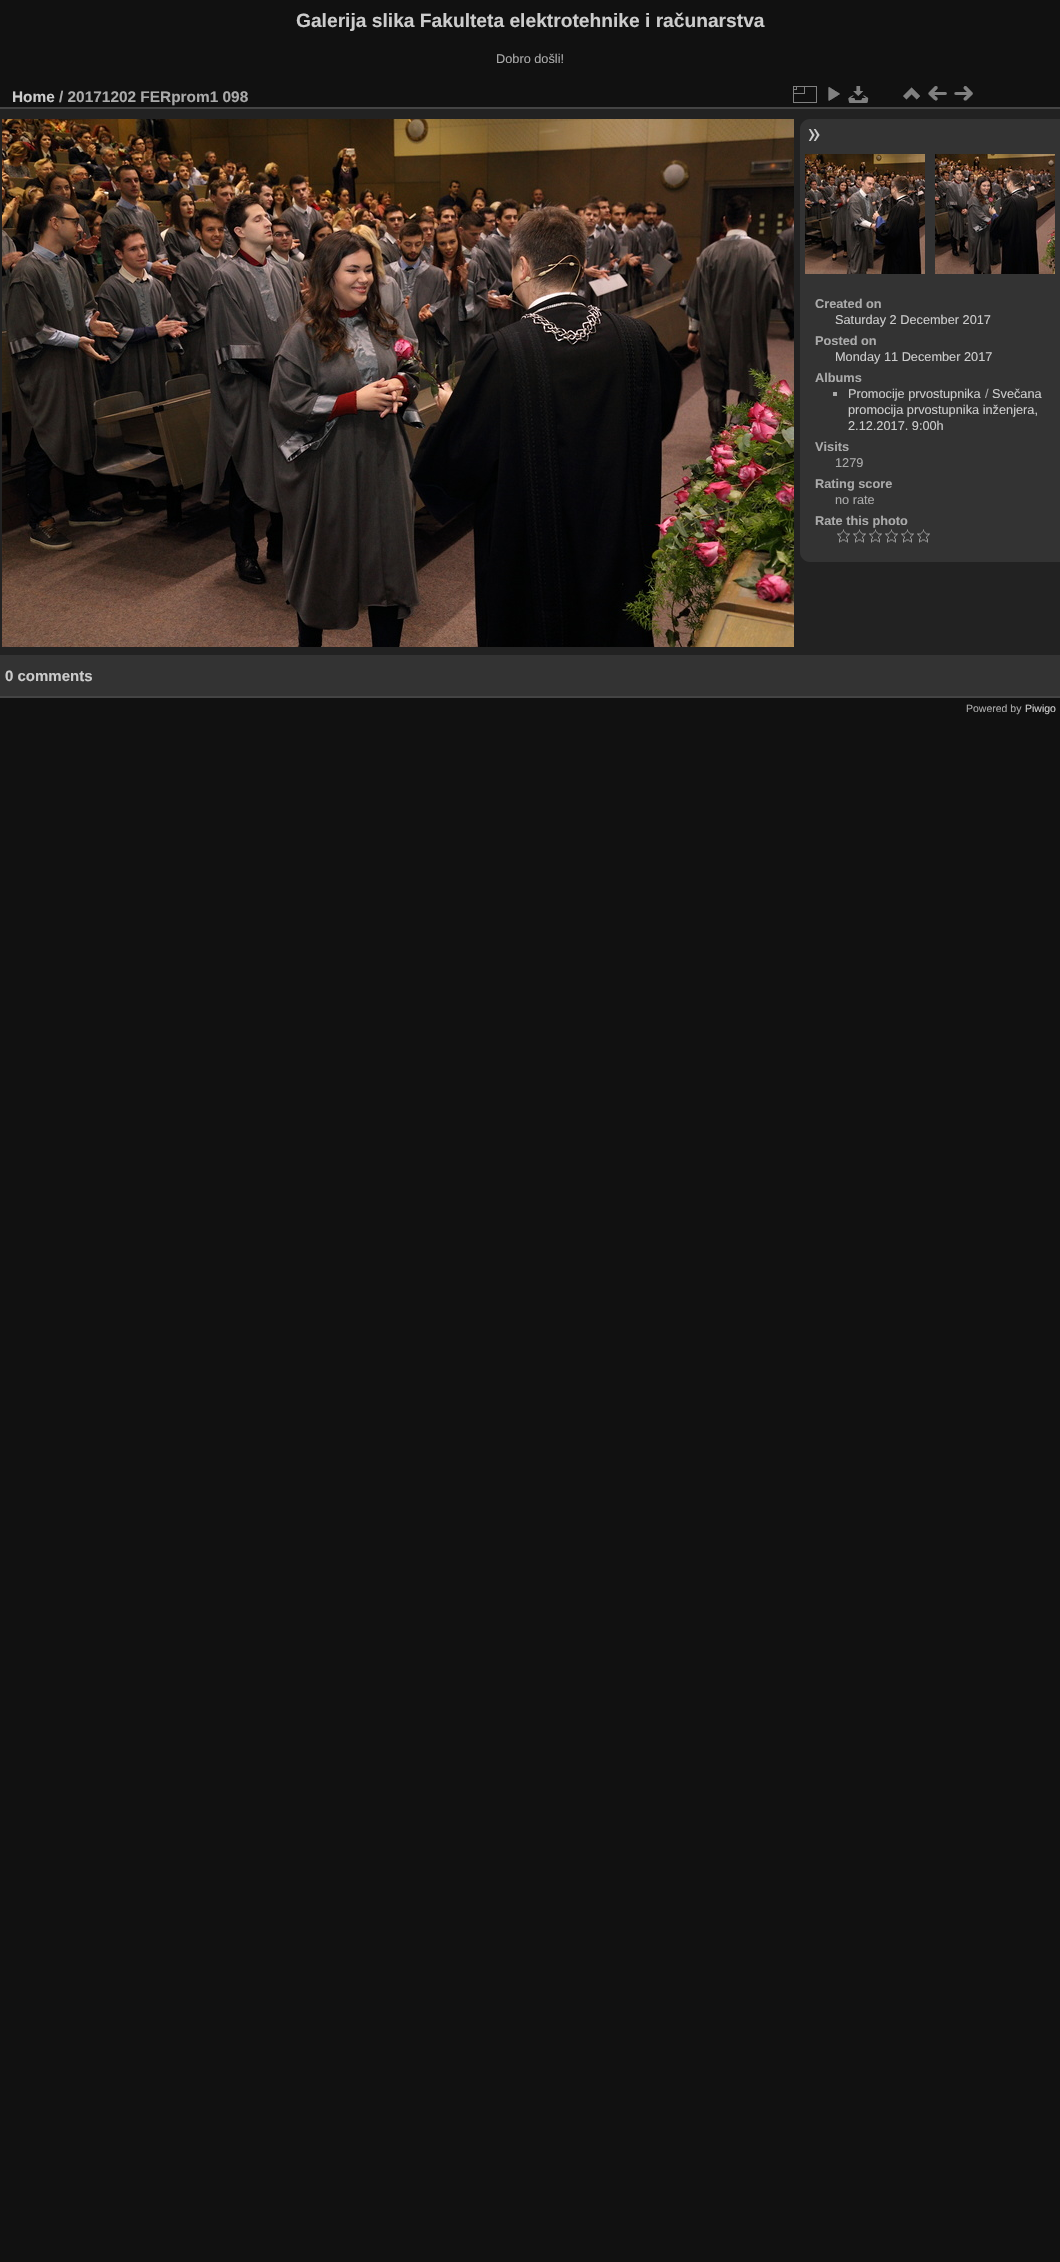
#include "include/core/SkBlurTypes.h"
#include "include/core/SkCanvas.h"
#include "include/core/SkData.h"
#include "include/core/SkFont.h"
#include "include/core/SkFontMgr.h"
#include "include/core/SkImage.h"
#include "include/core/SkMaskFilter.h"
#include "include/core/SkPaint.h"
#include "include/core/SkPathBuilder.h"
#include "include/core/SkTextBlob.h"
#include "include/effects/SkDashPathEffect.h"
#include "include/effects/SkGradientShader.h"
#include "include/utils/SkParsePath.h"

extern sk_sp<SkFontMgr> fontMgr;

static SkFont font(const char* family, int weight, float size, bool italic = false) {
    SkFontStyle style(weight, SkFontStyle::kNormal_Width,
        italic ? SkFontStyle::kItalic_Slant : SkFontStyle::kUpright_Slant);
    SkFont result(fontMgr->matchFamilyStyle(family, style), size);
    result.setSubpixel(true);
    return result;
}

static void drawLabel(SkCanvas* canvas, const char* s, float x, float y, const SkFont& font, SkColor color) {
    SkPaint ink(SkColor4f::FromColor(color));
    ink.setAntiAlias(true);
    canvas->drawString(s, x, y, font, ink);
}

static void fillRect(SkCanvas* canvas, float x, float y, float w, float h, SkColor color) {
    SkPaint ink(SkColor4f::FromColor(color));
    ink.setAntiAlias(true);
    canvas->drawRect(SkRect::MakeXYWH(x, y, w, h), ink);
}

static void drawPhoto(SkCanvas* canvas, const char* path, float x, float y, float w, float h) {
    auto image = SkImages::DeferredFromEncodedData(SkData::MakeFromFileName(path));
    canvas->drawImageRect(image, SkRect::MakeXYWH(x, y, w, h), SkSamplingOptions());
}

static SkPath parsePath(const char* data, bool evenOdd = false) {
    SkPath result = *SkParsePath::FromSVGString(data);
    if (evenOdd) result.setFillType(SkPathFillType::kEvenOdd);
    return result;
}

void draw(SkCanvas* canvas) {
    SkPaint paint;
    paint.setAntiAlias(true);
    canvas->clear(0xFF111111);
    SkFont font1 = font("Liberation Sans", 700, 19.2f);
    drawLabel(canvas, "Galerija slika Fakulteta elektrotehnike i računarstva", 296, 27, font1, 0xFFCCCCCC);
    SkFont font2 = font("Liberation Sans", 400, 12.75f);
    drawLabel(canvas, "Dobro došli!", 496, 63, font2, 0xFFAAAAAA);
    fillRect(canvas, 0, 109, 1060, 546, 0xFF222222);
    fillRect(canvas, 0, 696, 1060, 2, 0xFF444444);
    fillRect(canvas, 0, 107, 1060, 2, 0xFF444444);
    SkFont font3 = font("Liberation Sans", 700, 15.4f);
    drawLabel(canvas, "Home", 12, 102, font3, 0xFFCCCCCC);
    drawLabel(canvas, "/ 20171202 FERprom1 098", 59, 102, font3, 0xFFAAAAAA);
    drawPhoto(canvas, "assets/img1.png", 793, 86, 24, 17);
    drawPhoto(canvas, "assets/img2.png", 828, 87, 12, 14);
    drawPhoto(canvas, "assets/img3.png", 848, 86, 21, 17);
    drawPhoto(canvas, "assets/img4.png", 903, 87, 17, 13);
    drawPhoto(canvas, "assets/img5.png", 928, 86, 19, 15);
    drawPhoto(canvas, "assets/img6.png", 954, 86, 19, 15);
    drawPhoto(canvas, "assets/img7.png", 2, 119, 792, 528);
    paint.setColor(0xFF333333);
    canvas->drawPath(parsePath("M810 119H1060V562H810C804.5 562 800 557.5 800 552V129C800 123.5 804.5 119 810 119Z"), paint);
    drawPhoto(canvas, "assets/img8.png", 808, 129, 12, 12);
    drawPhoto(canvas, "assets/img9.png", 805, 154, 120, 120);
    drawPhoto(canvas, "assets/img10.png", 935, 154, 120, 120);
    SkFont font4 = font("Liberation Sans", 700, 12.75f);
    drawLabel(canvas, "Created on", 815, 308, font4, 0xFFAAAAAA);
    drawLabel(canvas, "Saturday 2 December 2017", 835, 324, font2, 0xFFCCCCCC);
    drawLabel(canvas, "Posted on", 815, 345, font4, 0xFFAAAAAA);
    drawLabel(canvas, "Monday 11 December 2017", 835, 361, font2, 0xFFCCCCCC);
    drawLabel(canvas, "Albums", 815, 382, font4, 0xFFAAAAAA);
    fillRect(canvas, 833, 392, 4, 4, 0xFFAAAAAA);
    drawLabel(canvas, "Promocije prvostupnika", 848, 398, font2, 0xFFCCCCCC);
    drawLabel(canvas, "/", 985, 398, font2, 0xFFAAAAAA);
    drawLabel(canvas, "Svečana", 992, 398, font2, 0xFFCCCCCC);
    drawLabel(canvas, "promocija prvostupnika inženjera,", 848, 414, font2, 0xFFCCCCCC);
    drawLabel(canvas, "2.12.2017. 9:00h", 848, 430, font2, 0xFFCCCCCC);
    drawLabel(canvas, "Visits", 815, 451, font4, 0xFFAAAAAA);
    drawLabel(canvas, "1279", 835, 467, font2, 0xFFAAAAAA);
    drawLabel(canvas, "Rating score", 815, 488, font4, 0xFFAAAAAA);
    drawLabel(canvas, "no rate", 835, 504, font2, 0xFFAAAAAA);
    drawLabel(canvas, "Rate this photo", 815, 525, font4, 0xFFAAAAAA);
    drawPhoto(canvas, "assets/img11.png", 837, 529, 13, 14);
    drawPhoto(canvas, "assets/img11.png", 853, 529, 13, 14);
    drawPhoto(canvas, "assets/img11.png", 869, 529, 13, 14);
    drawPhoto(canvas, "assets/img11.png", 885, 529, 13, 14);
    drawPhoto(canvas, "assets/img11.png", 901, 529, 13, 14);
    drawPhoto(canvas, "assets/img11.png", 917, 529, 13, 14);
    fillRect(canvas, 0, 655, 1060, 41, 0xFF333333);
    SkFont font5 = font("Liberation Sans", 700, 15);
    drawLabel(canvas, "0 comments", 5, 681, font5, 0xFFCCCCCC);
    SkFont font6 = font("Liberation Sans", 400, 10.5f);
    drawLabel(canvas, "Powered by", 966, 712, font6, 0xFFAAAAAA);
    drawLabel(canvas, "Piwigo", 1025, 712, font6, 0xFFCCCCCC);
}
